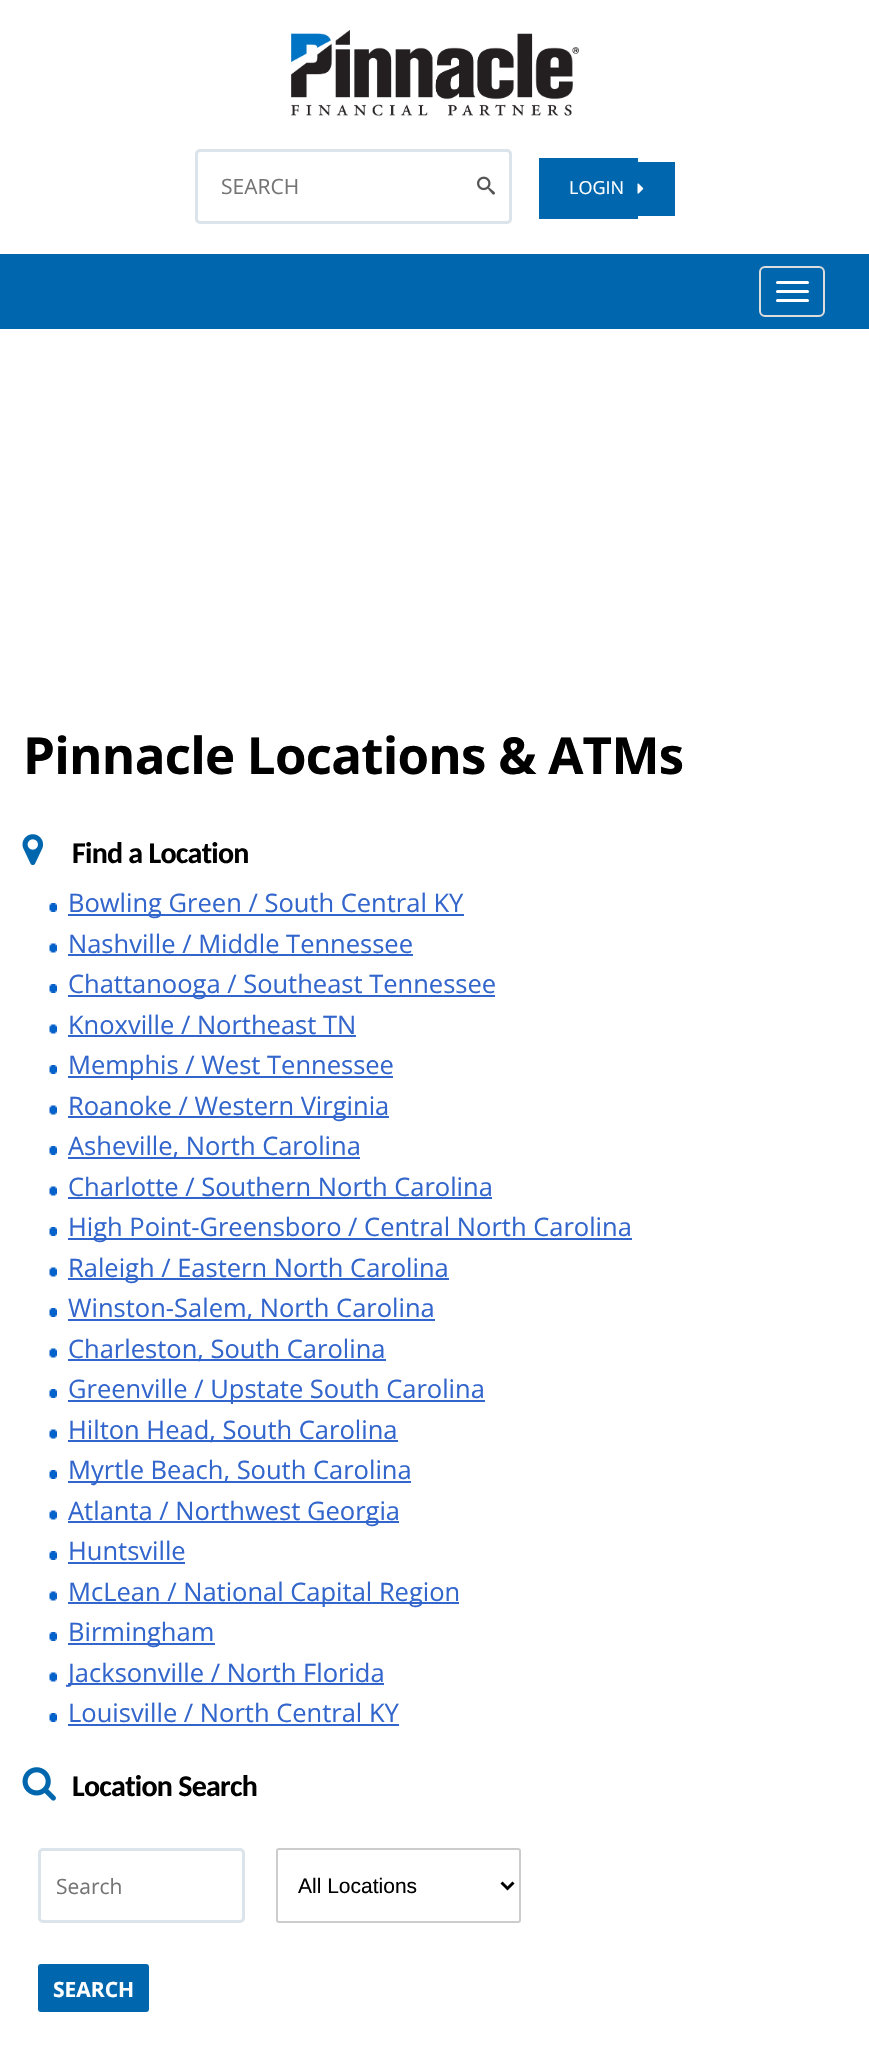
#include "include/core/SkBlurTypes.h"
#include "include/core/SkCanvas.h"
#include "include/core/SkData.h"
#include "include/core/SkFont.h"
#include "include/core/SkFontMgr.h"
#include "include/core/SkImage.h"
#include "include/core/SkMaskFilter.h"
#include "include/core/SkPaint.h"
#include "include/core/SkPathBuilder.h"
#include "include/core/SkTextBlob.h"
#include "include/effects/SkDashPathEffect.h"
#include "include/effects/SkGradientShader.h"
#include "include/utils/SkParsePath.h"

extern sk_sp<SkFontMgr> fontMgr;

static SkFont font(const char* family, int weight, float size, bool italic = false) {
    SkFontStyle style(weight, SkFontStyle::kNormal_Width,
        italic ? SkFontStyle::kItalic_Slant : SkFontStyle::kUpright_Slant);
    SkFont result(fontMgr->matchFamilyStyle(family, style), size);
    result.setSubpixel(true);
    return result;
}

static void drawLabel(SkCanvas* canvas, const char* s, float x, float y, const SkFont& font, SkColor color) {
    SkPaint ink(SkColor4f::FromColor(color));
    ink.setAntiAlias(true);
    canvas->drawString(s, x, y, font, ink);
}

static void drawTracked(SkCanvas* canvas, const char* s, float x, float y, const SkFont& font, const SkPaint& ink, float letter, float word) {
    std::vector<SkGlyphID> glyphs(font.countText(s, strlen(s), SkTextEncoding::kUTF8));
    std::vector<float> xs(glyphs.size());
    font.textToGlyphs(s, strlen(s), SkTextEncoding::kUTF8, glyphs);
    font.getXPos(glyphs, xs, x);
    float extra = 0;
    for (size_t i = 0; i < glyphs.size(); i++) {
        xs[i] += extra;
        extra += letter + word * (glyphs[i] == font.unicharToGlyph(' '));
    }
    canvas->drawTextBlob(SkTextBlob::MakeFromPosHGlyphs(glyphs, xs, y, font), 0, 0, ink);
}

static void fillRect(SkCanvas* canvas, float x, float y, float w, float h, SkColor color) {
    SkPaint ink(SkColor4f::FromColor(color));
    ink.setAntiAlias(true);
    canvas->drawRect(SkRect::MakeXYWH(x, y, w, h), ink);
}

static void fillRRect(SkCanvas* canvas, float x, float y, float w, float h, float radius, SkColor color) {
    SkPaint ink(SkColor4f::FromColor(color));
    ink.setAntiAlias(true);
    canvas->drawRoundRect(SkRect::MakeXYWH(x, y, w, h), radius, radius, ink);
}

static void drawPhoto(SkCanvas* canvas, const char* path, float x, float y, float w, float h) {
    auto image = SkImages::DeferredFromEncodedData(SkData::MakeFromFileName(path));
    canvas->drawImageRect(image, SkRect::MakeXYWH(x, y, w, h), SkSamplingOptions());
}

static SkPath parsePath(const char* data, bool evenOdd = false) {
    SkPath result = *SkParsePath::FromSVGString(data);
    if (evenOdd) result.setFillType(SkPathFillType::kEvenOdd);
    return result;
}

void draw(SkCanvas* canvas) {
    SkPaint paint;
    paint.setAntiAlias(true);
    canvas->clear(0xFFFFFFFF);
    drawPhoto(canvas, "assets/img1.png", 291, 30, 288, 86);
    paint.setStroke(true);
    paint.setStrokeWidth(3);
    paint.setColor(0xFFDBE4EA);
    canvas->drawRoundRect(SkRect::MakeXYWH(196.5f, 150.5f, 314, 72), 3.5f, 3.5f, paint);
    SkFont font1 = font("Open Sans", 400, 21);
    drawLabel(canvas, "SEARCH", 221, 194, font1, 0xFF757575);
    drawPhoto(canvas, "assets/img2.png", 477, 176, 18, 19);
    fillRect(canvas, 539, 158, 99, 61, 0xFF0067AE);
    fillRect(canvas, 638, 162, 37, 54, 0xFF0067AE);
    SkFont font2 = font("Open Sans", 400, 18);
    drawLabel(canvas, "LOGIN", 569, 194, font2, 0xFFFFFFFF);
    drawPhoto(canvas, "assets/img3.png", 637, 183, 7, 11);
    fillRect(canvas, 0, 254, 869, 75, 0xFF0067AE);
    paint.setStrokeWidth(2);
    paint.setColor(0xFFDDDDDD);
    canvas->drawRoundRect(SkRect::MakeXYWH(760, 267, 64, 49), 5, 5, paint);
    fillRRect(canvas, 776, 281, 33, 3, 1.5f, 0xFFFFFFFF);
    fillRRect(canvas, 776, 290, 33, 3, 1.5f, 0xFFFFFFFF);
    fillRRect(canvas, 776, 299, 33, 3, 1.5f, 0xFFFFFFFF);
    SkFont font3 = font("Open Sans", 700, 51);
    paint.setStroke(false);
    paint.setColor(0xFF000000);
    drawTracked(canvas, "Pinnacle Locations & ATMs", 23, 774, font3, paint, -0.75f, 0);
    drawPhoto(canvas, "assets/img4.png", 22, 834, 22, 32);
    SkFont font4 = font("Carlito", 700, 30);
    drawTracked(canvas, "Find a Location", 72, 863, font4, paint, -0.75f, 0);
    drawPhoto(canvas, "assets/img5.png", 49, 903, 8, 9);
    fillRect(canvas, 68, 914, 396, 2, 0xFF3366CC);
    SkFont font5 = font("Open Sans", 400, 25.5f);
    drawLabel(canvas, "Bowling Green / South Central KY", 68, 912, font5, 0xFF3366CC);
    drawPhoto(canvas, "assets/img6.png", 49, 943, 8, 10);
    drawLabel(canvas, "Nashville / Middle Tennessee", 68, 953, font5, 0xFF3366CC);
    fillRect(canvas, 68, 954, 345, 2, 0xFF3366CC);
    drawPhoto(canvas, "assets/img5.png", 49, 984, 8, 9);
    fillRect(canvas, 68, 995, 427, 2, 0xFF3366CC);
    drawLabel(canvas, "Chattanooga / Southeast Tennessee", 68, 993, font5, 0xFF3366CC);
    drawPhoto(canvas, "assets/img6.png", 49, 1024, 8, 10);
    drawLabel(canvas, "Knoxville / Northeast TN", 68, 1034, font5, 0xFF3366CC);
    fillRect(canvas, 68, 1035, 288, 2, 0xFF3366CC);
    drawPhoto(canvas, "assets/img5.png", 49, 1065, 8, 9);
    fillRect(canvas, 68, 1076, 325, 2, 0xFF3366CC);
    drawLabel(canvas, "Memphis / West Tennessee", 68, 1074, font5, 0xFF3366CC);
    drawPhoto(canvas, "assets/img6.png", 49, 1105, 8, 10);
    fillRect(canvas, 68, 1116, 321, 2, 0xFF3366CC);
    drawLabel(canvas, "Roanoke / Western Virginia", 68, 1115, font5, 0xFF3366CC);
    drawPhoto(canvas, "assets/img5.png", 49, 1146, 8, 9);
    fillRect(canvas, 68, 1157, 292, 2, 0xFF3366CC);
    drawLabel(canvas, "Asheville, North Carolina", 68, 1155, font5, 0xFF3366CC);
    drawPhoto(canvas, "assets/img6.png", 49, 1186, 8, 10);
    drawLabel(canvas, "Charlotte / Southern North Carolina", 68, 1196, font5, 0xFF3366CC);
    fillRect(canvas, 68, 1197, 424, 2, 0xFF3366CC);
    drawPhoto(canvas, "assets/img5.png", 49, 1227, 8, 9);
    fillRect(canvas, 68, 1238, 564, 2, 0xFF3366CC);
    drawLabel(canvas, "High Point-Greensboro / Central North Carolina", 68, 1236, font5, 0xFF3366CC);
    drawPhoto(canvas, "assets/img6.png", 49, 1267, 8, 10);
    fillRect(canvas, 68, 1278, 381, 2, 0xFF3366CC);
    drawLabel(canvas, "Raleigh / Eastern North Carolina", 68, 1277, font5, 0xFF3366CC);
    drawPhoto(canvas, "assets/img5.png", 49, 1308, 8, 9);
    fillRect(canvas, 68, 1319, 367, 2, 0xFF3366CC);
    drawLabel(canvas, "Winston-Salem, North Carolina", 68, 1317, font5, 0xFF3366CC);
    drawPhoto(canvas, "assets/img6.png", 49, 1348, 8, 10);
    fillRect(canvas, 68, 1359, 318, 2, 0xFF3366CC);
    drawLabel(canvas, "Charleston, South Carolina", 68, 1358, font5, 0xFF3366CC);
    drawPhoto(canvas, "assets/img5.png", 49, 1389, 8, 9);
    fillRect(canvas, 68, 1400, 417, 2, 0xFF3366CC);
    drawLabel(canvas, "Greenville / Upstate South Carolina", 68, 1398, font5, 0xFF3366CC);
    drawPhoto(canvas, "assets/img6.png", 49, 1429, 8, 10);
    fillRect(canvas, 68, 1440, 330, 2, 0xFF3366CC);
    drawLabel(canvas, "Hilton Head, South Carolina", 68, 1439, font5, 0xFF3366CC);
    drawPhoto(canvas, "assets/img5.png", 49, 1470, 8, 9);
    fillRect(canvas, 68, 1481, 343, 2, 0xFF3366CC);
    drawLabel(canvas, "Myrtle Beach, South Carolina", 68, 1479, font5, 0xFF3366CC);
    drawPhoto(canvas, "assets/img6.png", 49, 1510, 8, 10);
    fillRect(canvas, 68, 1521, 331, 2, 0xFF3366CC);
    drawLabel(canvas, "Atlanta / Northwest Georgia", 68, 1520, font5, 0xFF3366CC);
    drawPhoto(canvas, "assets/img5.png", 49, 1551, 8, 9);
    drawLabel(canvas, "Huntsville", 68, 1560, font5, 0xFF3366CC);
    fillRect(canvas, 68, 1562, 117, 2, 0xFF3366CC);
    drawPhoto(canvas, "assets/img6.png", 49, 1591, 8, 10);
    fillRect(canvas, 68, 1602, 391, 2, 0xFF3366CC);
    drawLabel(canvas, "McLean / National Capital Region", 68, 1601, font5, 0xFF3366CC);
    drawPhoto(canvas, "assets/img5.png", 49, 1632, 8, 9);
    fillRect(canvas, 68, 1643, 147, 2, 0xFF3366CC);
    drawLabel(canvas, "Birmingham", 68, 1641, font5, 0xFF3366CC);
    drawPhoto(canvas, "assets/img6.png", 49, 1672, 8, 10);
    fillRect(canvas, 68, 1683, 316, 2, 0xFF3366CC);
    drawLabel(canvas, "Jacksonville / North Florida", 68, 1682, font5, 0xFF3366CC);
    drawPhoto(canvas, "assets/img5.png", 49, 1713, 8, 9);
    drawLabel(canvas, "Louisville / North Central KY", 68, 1722, font5, 0xFF3366CC);
    fillRect(canvas, 68, 1724, 331, 2, 0xFF3366CC);
    drawPhoto(canvas, "assets/img7.png", 22, 1767, 34, 34);
    drawTracked(canvas, "Location Search", 72, 1796, font4, paint, -0.75f, 0);
    paint.setStroke(true);
    paint.setStrokeWidth(3);
    paint.setColor(0xFFDBE4EA);
    canvas->drawRoundRect(SkRect::MakeXYWH(39.5f, 1849.5f, 204, 72), 3.5f, 3.5f, paint);
    drawLabel(canvas, "Search", 56, 1894, font1, 0xFF757575);
    paint.setStrokeWidth(2);
    paint.setColor(0xFFCCCCCC);
    canvas->drawRoundRect(SkRect::MakeXYWH(277, 1849, 243, 73), 2, 2, paint);
    paint.setStrokeWidth(3);
    paint.setColor(0xFF000000);
    canvas->drawPath(parsePath("M501.5 1882.5L507.5 1888.5L513.5 1882.5"), paint);
    SkFont font6 = font("Liberation Sans", 400, 21);
    drawLabel(canvas, "All Locations", 298, 1893, font6, 0xFF000000);
    fillRRect(canvas, 38, 1964, 111, 48, 3, 0xFF0067AE);
    SkFont font7 = font("Open Sans", 700, 21);
    drawLabel(canvas, "SEARCH", 53, 1997, font7, 0xFFFFFFFF);
}
